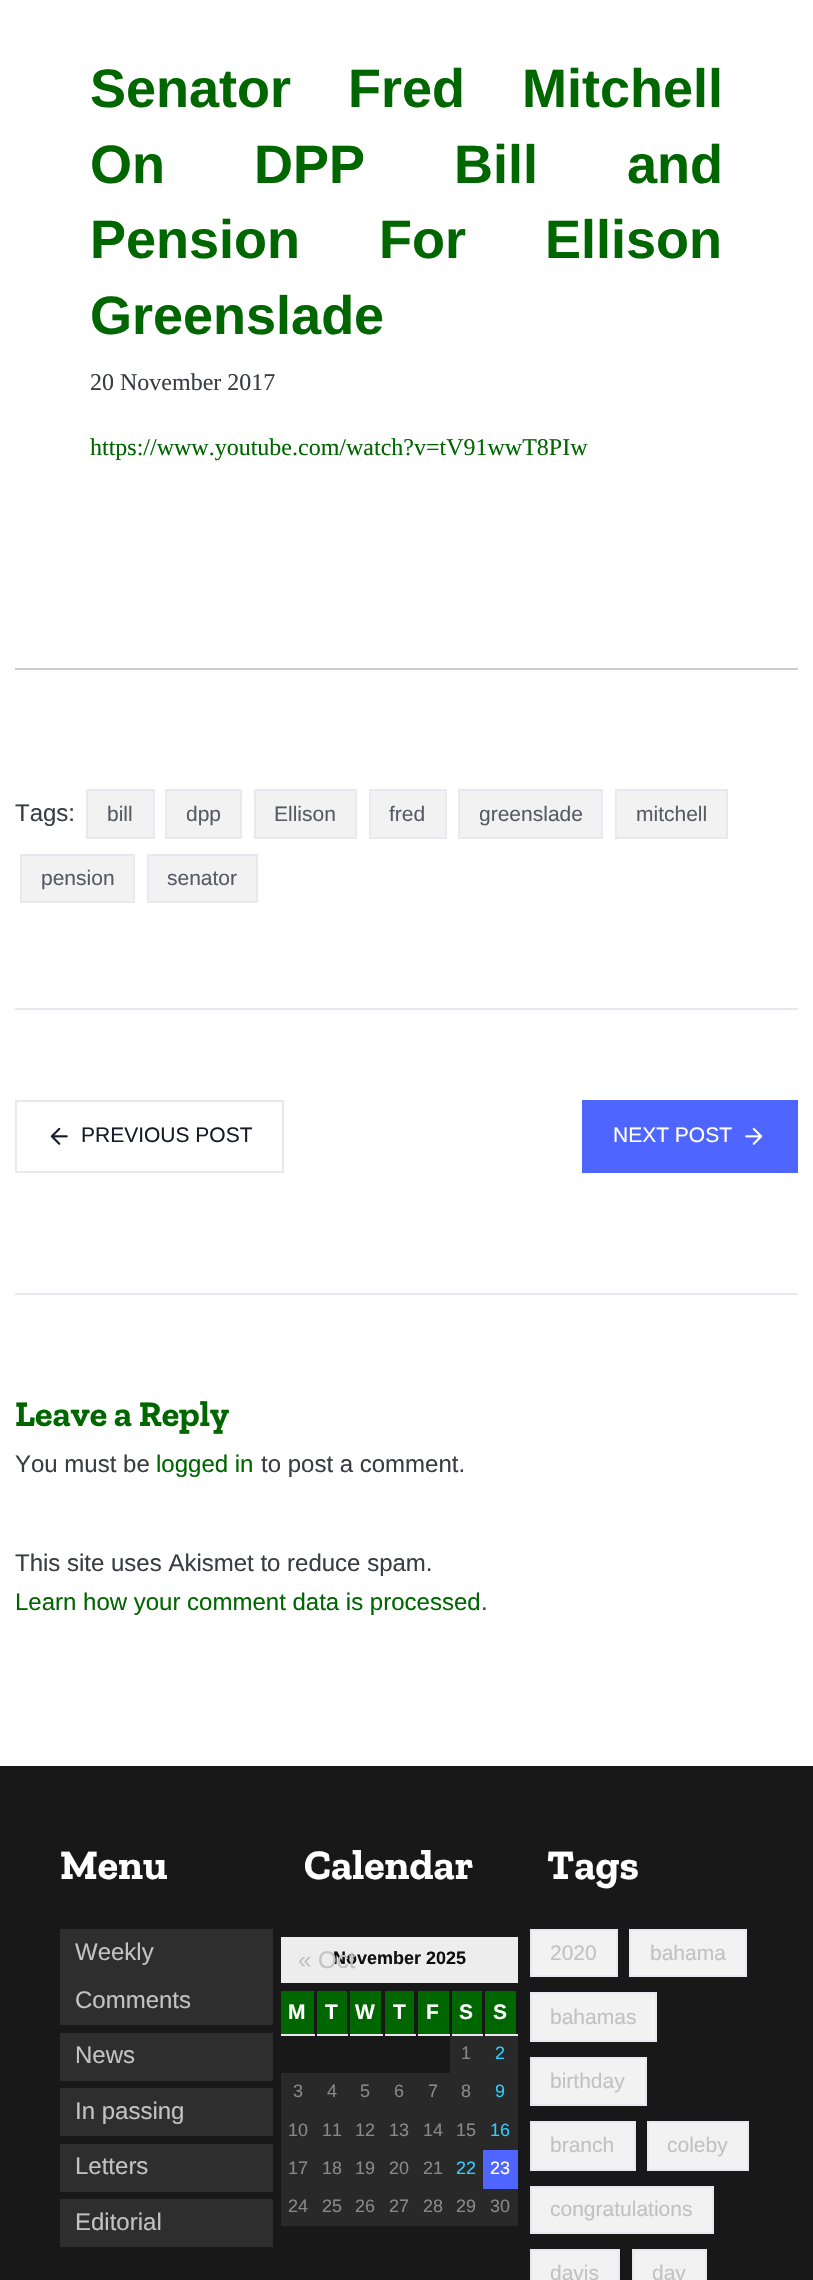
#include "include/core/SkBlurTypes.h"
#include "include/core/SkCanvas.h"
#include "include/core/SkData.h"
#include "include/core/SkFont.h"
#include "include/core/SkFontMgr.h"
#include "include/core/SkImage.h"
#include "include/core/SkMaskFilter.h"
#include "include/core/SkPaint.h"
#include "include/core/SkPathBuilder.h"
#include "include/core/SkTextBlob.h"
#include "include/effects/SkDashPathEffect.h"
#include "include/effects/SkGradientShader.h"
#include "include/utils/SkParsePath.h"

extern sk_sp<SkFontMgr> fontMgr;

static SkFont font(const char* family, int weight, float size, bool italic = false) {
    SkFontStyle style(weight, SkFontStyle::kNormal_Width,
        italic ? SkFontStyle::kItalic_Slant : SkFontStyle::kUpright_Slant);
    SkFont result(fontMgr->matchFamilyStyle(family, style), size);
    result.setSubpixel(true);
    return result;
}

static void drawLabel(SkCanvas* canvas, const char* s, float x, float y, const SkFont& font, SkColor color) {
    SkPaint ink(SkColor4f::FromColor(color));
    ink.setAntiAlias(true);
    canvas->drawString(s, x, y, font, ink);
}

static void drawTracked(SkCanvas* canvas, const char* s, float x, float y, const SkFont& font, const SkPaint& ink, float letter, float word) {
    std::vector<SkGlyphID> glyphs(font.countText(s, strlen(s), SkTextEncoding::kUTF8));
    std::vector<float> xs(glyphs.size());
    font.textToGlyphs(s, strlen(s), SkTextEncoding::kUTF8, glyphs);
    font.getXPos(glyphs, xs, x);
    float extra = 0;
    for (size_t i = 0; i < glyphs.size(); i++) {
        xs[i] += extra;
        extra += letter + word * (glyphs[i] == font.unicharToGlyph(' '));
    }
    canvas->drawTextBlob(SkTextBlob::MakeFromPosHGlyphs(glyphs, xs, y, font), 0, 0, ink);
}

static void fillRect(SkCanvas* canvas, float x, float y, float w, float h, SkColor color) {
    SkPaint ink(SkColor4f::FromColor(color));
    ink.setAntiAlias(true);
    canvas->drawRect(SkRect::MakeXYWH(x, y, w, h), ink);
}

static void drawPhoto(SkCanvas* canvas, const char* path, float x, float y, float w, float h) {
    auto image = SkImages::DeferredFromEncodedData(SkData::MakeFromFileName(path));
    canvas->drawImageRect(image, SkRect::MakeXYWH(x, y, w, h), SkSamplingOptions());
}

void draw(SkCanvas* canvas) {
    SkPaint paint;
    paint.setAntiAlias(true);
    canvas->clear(0xFFFFFFFF);
    fillRect(canvas, 15, 668, 783, 2, 0xFFCCCCCC);
    SkFont font1 = font("Liberation Sans", 700, 54);
    paint.setColor(0xFF006600);
    drawTracked(canvas, "Senator Fred Mitchell", 90, 107, font1, paint, 0, 42);
    drawTracked(canvas, "On DPP Bill and", 90, 183, font1, paint, 0, 74);
    drawTracked(canvas, "Pension For Ellison", 90, 258, font1, paint, 0, 64);
    drawLabel(canvas, "Greenslade", 90, 334, font1, 0xFF006600);
    SkFont font2 = font("Liberation Serif", 400, 24);
    drawLabel(canvas, "20 November 2017", 90, 390, font2, 0xFF3A3D43);
    drawLabel(canvas, "https://www.youtube.com/watch?v=tV91wwT8PIw", 90, 455, font2, 0xFF006600);
    fillRect(canvas, 15, 1008, 783, 2, 0xFFE9E8EF);
    SkFont font3 = font("Liberation Sans", 400, 24);
    drawLabel(canvas, "Tags:", 15, 821, font3, 0xFF3A3D43);
    paint.setColor(0xFFF2F2F2);
    canvas->drawRect(SkRect::MakeXYWH(87, 790, 67, 48), paint);
    paint.setStroke(true);
    paint.setStrokeWidth(2);
    paint.setColor(0xFFE9E8EF);
    canvas->drawRect(SkRect::MakeXYWH(87, 790, 67, 48), paint);
    SkFont font4 = font("Liberation Sans", 400, 21);
    drawLabel(canvas, "bill", 107, 821, font4, 0xFF585B63);
    paint.setStroke(false);
    paint.setColor(0xFFF2F2F2);
    canvas->drawRect(SkRect::MakeXYWH(166, 790, 75, 48), paint);
    paint.setStroke(true);
    paint.setColor(0xFFE9E8EF);
    canvas->drawRect(SkRect::MakeXYWH(166, 790, 75, 48), paint);
    drawLabel(canvas, "dpp", 186, 821, font4, 0xFF585B63);
    paint.setStroke(false);
    paint.setColor(0xFFF2F2F2);
    canvas->drawRect(SkRect::MakeXYWH(255, 790, 101, 48), paint);
    paint.setStroke(true);
    paint.setColor(0xFFE9E8EF);
    canvas->drawRect(SkRect::MakeXYWH(255, 790, 101, 48), paint);
    drawLabel(canvas, "Ellison", 274, 821, font4, 0xFF585B63);
    paint.setStroke(false);
    paint.setColor(0xFFF2F2F2);
    canvas->drawRect(SkRect::MakeXYWH(370, 790, 76, 48), paint);
    paint.setStroke(true);
    paint.setColor(0xFFE9E8EF);
    canvas->drawRect(SkRect::MakeXYWH(370, 790, 76, 48), paint);
    drawLabel(canvas, "fred", 389, 821, font4, 0xFF585B63);
    paint.setStroke(false);
    paint.setColor(0xFFF2F2F2);
    canvas->drawRect(SkRect::MakeXYWH(459, 790, 143, 48), paint);
    paint.setStroke(true);
    paint.setColor(0xFFE9E8EF);
    canvas->drawRect(SkRect::MakeXYWH(459, 790, 143, 48), paint);
    drawLabel(canvas, "greenslade", 479, 821, font4, 0xFF585B63);
    paint.setStroke(false);
    paint.setColor(0xFFF2F2F2);
    canvas->drawRect(SkRect::MakeXYWH(616, 790, 111, 48), paint);
    paint.setStroke(true);
    paint.setColor(0xFFE9E8EF);
    canvas->drawRect(SkRect::MakeXYWH(616, 790, 111, 48), paint);
    drawLabel(canvas, "mitchell", 636, 821, font4, 0xFF585B63);
    paint.setStroke(false);
    paint.setColor(0xFFF2F2F2);
    canvas->drawRect(SkRect::MakeXYWH(21, 855, 113, 47), paint);
    paint.setStroke(true);
    paint.setColor(0xFFE9E8EF);
    canvas->drawRect(SkRect::MakeXYWH(21, 855, 113, 47), paint);
    drawLabel(canvas, "pension", 41, 885, font4, 0xFF585B63);
    paint.setStroke(false);
    paint.setColor(0xFFF2F2F2);
    canvas->drawRect(SkRect::MakeXYWH(148, 855, 109, 47), paint);
    paint.setStroke(true);
    paint.setColor(0xFFE9E8EF);
    canvas->drawRect(SkRect::MakeXYWH(148, 855, 109, 47), paint);
    drawLabel(canvas, "senator", 167, 885, font4, 0xFF585B63);
    fillRect(canvas, 15, 1293, 783, 2, 0xFFE9E8EF);
    canvas->drawRect(SkRect::MakeXYWH(16, 1101, 267, 71), paint);
    drawPhoto(canvas, "assets/img1.png", 50, 1127, 18, 18);
    drawLabel(canvas, "PREVIOUS POST", 81, 1142, font4, 0xFF161B2A);
    fillRect(canvas, 582, 1100, 216, 73, 0xFF4E65FF);
    drawLabel(canvas, "NEXT POST", 613, 1142, font4, 0xFFFFFFFF);
    drawPhoto(canvas, "assets/img2.png", 745, 1127, 18, 18);
    SkFont font5 = font("Zilla Slab", 700, 36);
    drawLabel(canvas, "Leave a Reply", 15, 1426, font5, 0xFF006600);
    drawLabel(canvas, "You must be", 15, 1472, font3, 0xFF3A3D43);
    drawLabel(canvas, "logged in", 156, 1472, font3, 0xFF006600);
    drawLabel(canvas, "to post a comment.", 261, 1472, font3, 0xFF3A3D43);
    drawLabel(canvas, "This site uses Akismet to reduce spam.", 15, 1571, font3, 0xFF3A3D43);
    drawLabel(canvas, "Learn how your comment data is processed", 15, 1610, font3, 0xFF006600);
    drawLabel(canvas, ".", 481, 1610, font3, 0xFF3A3D43);
    fillRect(canvas, 0, 1766, 813, 514, 0xFF181818);
    SkFont font6 = font("Zilla Slab", 700, 42);
    drawLabel(canvas, "Menu", 60, 1879, font6, 0xFFFFFFFF);
    fillRect(canvas, 60, 1929, 213, 96, 0xFF2E2E2E);
    drawLabel(canvas, "Weekly", 75, 1960, font3, 0xFFC2C2C2);
    drawLabel(canvas, "Comments", 75, 2008, font3, 0xFFC2C2C2);
    fillRect(canvas, 60, 2033, 213, 48, 0xFF2E2E2E);
    drawLabel(canvas, "News", 75, 2063, font3, 0xFFC2C2C2);
    fillRect(canvas, 60, 2088, 213, 48, 0xFF2E2E2E);
    drawLabel(canvas, "In passing", 75, 2119, font3, 0xFFC2C2C2);
    fillRect(canvas, 60, 2144, 213, 48, 0xFF2E2E2E);
    drawLabel(canvas, "Letters", 75, 2174, font3, 0xFFC2C2C2);
    fillRect(canvas, 60, 2199, 213, 48, 0xFF2E2E2E);
    drawLabel(canvas, "Editorial", 75, 2230, font3, 0xFFC2C2C2);
    drawLabel(canvas, "Calendar", 304, 1879, font6, 0xFFFFFFFF);
    fillRect(canvas, 281, 1937, 237, 46, 0xFFEDEDED);
    SkFont font7 = font("Liberation Sans", 700, 18);
    drawLabel(canvas, "November 2025", 333, 1964, font7, 0xFF101010);
    fillRect(canvas, 281, 1991, 33, 43, 0xFF006600);
    fillRect(canvas, 281, 2034, 237, 2, 0xFFE9E8EF);
    SkFont font8 = font("Liberation Sans", 700, 21);
    drawLabel(canvas, "M", 288, 2019, font8, 0xFFFFFFFF);
    fillRect(canvas, 317, 1991, 30, 43, 0xFF006600);
    fillRect(canvas, 315, 2034, 2, 2, 0xFF181818);
    drawLabel(canvas, "T", 325, 2019, font8, 0xFFFFFFFF);
    fillRect(canvas, 350, 1991, 31, 43, 0xFF006600);
    fillRect(canvas, 348, 2034, 2, 2, 0xFF181818);
    drawLabel(canvas, "W", 355, 2019, font8, 0xFFFFFFFF);
    fillRect(canvas, 385, 1991, 29, 43, 0xFF006600);
    fillRect(canvas, 383, 2034, 2, 2, 0xFF181818);
    drawLabel(canvas, "T", 393, 2019, font8, 0xFFFFFFFF);
    fillRect(canvas, 418, 1991, 31, 43, 0xFF006600);
    fillRect(canvas, 416, 2034, 2, 2, 0xFF181818);
    drawLabel(canvas, "F", 426, 2019, font8, 0xFFFFFFFF);
    fillRect(canvas, 452, 1991, 30, 43, 0xFF006600);
    fillRect(canvas, 450, 2034, 2, 2, 0xFF181818);
    drawLabel(canvas, "S", 459, 2019, font8, 0xFFFFFFFF);
    fillRect(canvas, 485, 1991, 31, 43, 0xFF006600);
    fillRect(canvas, 483, 2034, 2, 2, 0xFF181818);
    drawLabel(canvas, "S", 493, 2019, font8, 0xFFFFFFFF);
    fillRect(canvas, 450, 2036, 68, 37, 0xFF292929);
    SkFont font9 = font("Liberation Sans", 400, 18);
    drawLabel(canvas, "1", 461, 2059, font9, 0xFF888888);
    drawLabel(canvas, "2", 495, 2059, font9, 0xFF32CCFE);
    fillRect(canvas, 281, 2073, 237, 39, 0xFF292929);
    drawLabel(canvas, "3", 293, 2097, font9, 0xFF888888);
    drawLabel(canvas, "4", 327, 2097, font9, 0xFF888888);
    drawLabel(canvas, "5", 360, 2097, font9, 0xFF888888);
    drawLabel(canvas, "6", 394, 2097, font9, 0xFF888888);
    drawLabel(canvas, "7", 428, 2097, font9, 0xFF888888);
    drawLabel(canvas, "8", 461, 2097, font9, 0xFF888888);
    drawLabel(canvas, "9", 495, 2097, font9, 0xFF32CCFE);
    fillRect(canvas, 281, 2112, 237, 38, 0xFF292929);
    drawLabel(canvas, "10", 288, 2136, font9, 0xFF888888);
    drawLabel(canvas, "11", 322, 2136, font9, 0xFF888888);
    drawLabel(canvas, "12", 355, 2136, font9, 0xFF888888);
    drawLabel(canvas, "13", 389, 2136, font9, 0xFF888888);
    drawLabel(canvas, "14", 423, 2136, font9, 0xFF888888);
    drawLabel(canvas, "15", 456, 2136, font9, 0xFF888888);
    drawLabel(canvas, "16", 490, 2136, font9, 0xFF32CCFE);
    fillRect(canvas, 281, 2150, 202, 39, 0xFF292929);
    drawLabel(canvas, "17", 288, 2174, font9, 0xFF888888);
    drawLabel(canvas, "18", 322, 2174, font9, 0xFF888888);
    drawLabel(canvas, "19", 355, 2174, font9, 0xFF888888);
    drawLabel(canvas, "20", 389, 2174, font9, 0xFF888888);
    drawLabel(canvas, "21", 423, 2174, font9, 0xFF888888);
    drawLabel(canvas, "22", 456, 2174, font9, 0xFF32CCFE);
    fillRect(canvas, 483, 2150, 35, 39, 0xFF4E65FF);
    drawLabel(canvas, "23", 490, 2174, font9, 0xFFFFFFFF);
    fillRect(canvas, 281, 2189, 237, 37, 0xFF292929);
    drawLabel(canvas, "24", 288, 2212, font9, 0xFF888888);
    drawLabel(canvas, "25", 322, 2212, font9, 0xFF888888);
    drawLabel(canvas, "26", 355, 2212, font9, 0xFF888888);
    drawLabel(canvas, "27", 389, 2212, font9, 0xFF888888);
    drawLabel(canvas, "28", 423, 2212, font9, 0xFF888888);
    drawLabel(canvas, "29", 456, 2212, font9, 0xFF888888);
    drawLabel(canvas, "30", 490, 2212, font9, 0xFF888888);
    drawLabel(canvas, "« Oct", 298, 1968, font3, 0xFFC2C2C2);
    drawLabel(canvas, "Tags", 547, 1879, font6, 0xFFFFFFFF);
    paint.setStroke(false);
    paint.setColor(0xFFF2F2F2);
    canvas->drawRect(SkRect::MakeXYWH(531, 1930, 86, 46), paint);
    paint.setStroke(true);
    paint.setColor(0xFFE9E8EF);
    canvas->drawRect(SkRect::MakeXYWH(531, 1930, 86, 46), paint);
    drawLabel(canvas, "2020", 550, 1960, font4, 0xFFC2C2C2);
    paint.setStroke(false);
    paint.setColor(0xFFF2F2F2);
    canvas->drawRect(SkRect::MakeXYWH(630, 1930, 116, 46), paint);
    paint.setStroke(true);
    paint.setColor(0xFFE9E8EF);
    canvas->drawRect(SkRect::MakeXYWH(630, 1930, 116, 46), paint);
    drawLabel(canvas, "bahama", 650, 1960, font4, 0xFFC2C2C2);
    paint.setStroke(false);
    paint.setColor(0xFFF2F2F2);
    canvas->drawRect(SkRect::MakeXYWH(531, 1993, 125, 48), paint);
    paint.setStroke(true);
    paint.setColor(0xFFE9E8EF);
    canvas->drawRect(SkRect::MakeXYWH(531, 1993, 125, 48), paint);
    drawLabel(canvas, "bahamas", 550, 2024, font4, 0xFFC2C2C2);
    paint.setStroke(false);
    paint.setColor(0xFFF2F2F2);
    canvas->drawRect(SkRect::MakeXYWH(531, 2058, 115, 47), paint);
    paint.setStroke(true);
    paint.setColor(0xFFE9E8EF);
    canvas->drawRect(SkRect::MakeXYWH(531, 2058, 115, 47), paint);
    drawLabel(canvas, "birthday", 550, 2088, font4, 0xFFC2C2C2);
    paint.setStroke(false);
    paint.setColor(0xFFF2F2F2);
    canvas->drawRect(SkRect::MakeXYWH(531, 2122, 104, 48), paint);
    paint.setStroke(true);
    paint.setColor(0xFFE9E8EF);
    canvas->drawRect(SkRect::MakeXYWH(531, 2122, 104, 48), paint);
    drawLabel(canvas, "branch", 550, 2152, font4, 0xFFC2C2C2);
    paint.setStroke(false);
    paint.setColor(0xFFF2F2F2);
    canvas->drawRect(SkRect::MakeXYWH(648, 2122, 100, 48), paint);
    paint.setStroke(true);
    paint.setColor(0xFFE9E8EF);
    canvas->drawRect(SkRect::MakeXYWH(648, 2122, 100, 48), paint);
    drawLabel(canvas, "coleby", 667, 2152, font4, 0xFFC2C2C2);
    paint.setStroke(false);
    paint.setColor(0xFFF2F2F2);
    canvas->drawRect(SkRect::MakeXYWH(531, 2187, 182, 46), paint);
    paint.setStroke(true);
    paint.setColor(0xFFE9E8EF);
    canvas->drawRect(SkRect::MakeXYWH(531, 2187, 182, 46), paint);
    drawLabel(canvas, "congratulations", 550, 2216, font4, 0xFFC2C2C2);
    paint.setStroke(false);
    paint.setColor(0xFFF2F2F2);
    canvas->drawRect(SkRect::MakeXYWH(531, 2250, 88, 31), paint);
    paint.setStroke(true);
    paint.setColor(0xFFE9E8EF);
    canvas->drawRect(SkRect::MakeXYWH(531, 2250, 88, 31), paint);
    drawLabel(canvas, "davis", 550, 2280, font4, 0xFFC2C2C2);
    paint.setStroke(false);
    paint.setColor(0xFFF2F2F2);
    canvas->drawRect(SkRect::MakeXYWH(633, 2250, 73, 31), paint);
    paint.setStroke(true);
    paint.setColor(0xFFE9E8EF);
    canvas->drawRect(SkRect::MakeXYWH(633, 2250, 73, 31), paint);
    drawLabel(canvas, "day", 652, 2280, font4, 0xFFC2C2C2);
}
